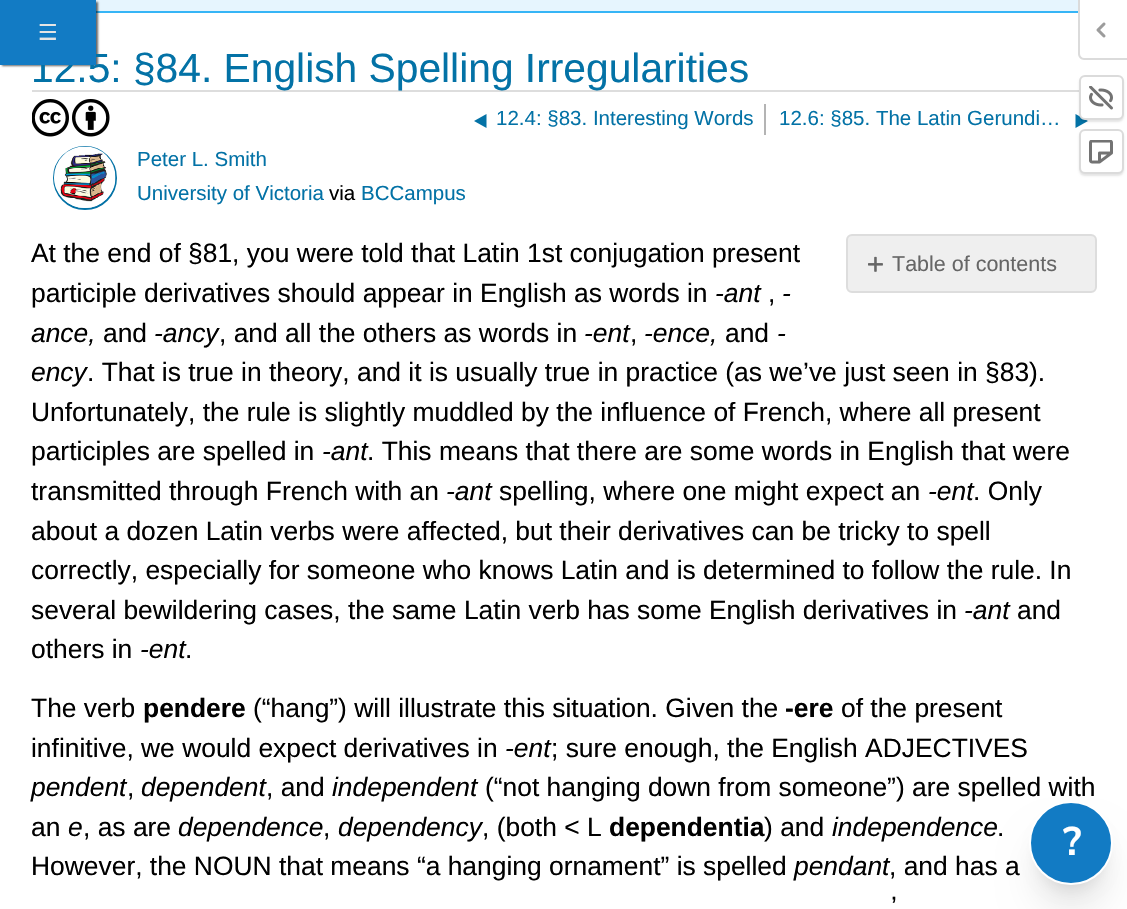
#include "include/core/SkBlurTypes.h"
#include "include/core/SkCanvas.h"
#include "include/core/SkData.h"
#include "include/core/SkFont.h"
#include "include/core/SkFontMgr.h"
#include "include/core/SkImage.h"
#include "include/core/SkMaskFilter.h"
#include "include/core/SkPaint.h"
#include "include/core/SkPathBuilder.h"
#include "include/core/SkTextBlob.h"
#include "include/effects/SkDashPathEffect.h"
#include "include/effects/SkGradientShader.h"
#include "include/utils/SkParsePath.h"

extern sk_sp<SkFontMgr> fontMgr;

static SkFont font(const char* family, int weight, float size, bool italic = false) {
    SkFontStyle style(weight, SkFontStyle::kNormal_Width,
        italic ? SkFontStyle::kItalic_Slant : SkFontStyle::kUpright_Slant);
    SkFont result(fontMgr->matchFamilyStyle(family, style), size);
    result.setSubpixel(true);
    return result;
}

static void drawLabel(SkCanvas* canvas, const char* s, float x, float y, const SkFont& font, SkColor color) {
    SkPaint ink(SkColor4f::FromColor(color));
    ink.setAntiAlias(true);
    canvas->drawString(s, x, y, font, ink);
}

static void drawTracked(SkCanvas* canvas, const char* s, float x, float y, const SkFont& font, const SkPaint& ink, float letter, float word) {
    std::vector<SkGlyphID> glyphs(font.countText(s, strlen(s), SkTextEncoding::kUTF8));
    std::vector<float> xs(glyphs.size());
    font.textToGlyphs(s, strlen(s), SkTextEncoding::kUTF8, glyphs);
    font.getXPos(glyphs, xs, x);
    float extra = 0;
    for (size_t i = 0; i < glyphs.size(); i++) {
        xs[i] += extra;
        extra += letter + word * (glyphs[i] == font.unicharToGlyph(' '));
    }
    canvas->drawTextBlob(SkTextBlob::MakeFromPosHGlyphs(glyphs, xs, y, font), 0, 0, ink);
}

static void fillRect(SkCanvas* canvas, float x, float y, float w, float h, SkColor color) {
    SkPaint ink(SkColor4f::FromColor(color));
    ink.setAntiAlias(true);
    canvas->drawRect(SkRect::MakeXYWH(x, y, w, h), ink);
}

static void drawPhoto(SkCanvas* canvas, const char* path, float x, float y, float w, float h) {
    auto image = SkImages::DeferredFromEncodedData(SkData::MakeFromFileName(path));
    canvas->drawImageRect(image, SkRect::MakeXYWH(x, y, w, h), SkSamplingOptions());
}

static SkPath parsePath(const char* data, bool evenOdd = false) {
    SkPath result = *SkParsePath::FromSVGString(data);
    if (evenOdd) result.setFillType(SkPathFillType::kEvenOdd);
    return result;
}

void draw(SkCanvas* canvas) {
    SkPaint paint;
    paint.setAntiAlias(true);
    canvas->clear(0xFFFFFFFF);
    fillRect(canvas, 96, 0, 982, 11, 0xFFE6F5FE);
    fillRect(canvas, 96, 11, 982, 2, 0xFF36B5F6);
    paint.setColor(0x99000000);
    paint.setMaskFilter(SkMaskFilter::MakeBlur(kNormal_SkBlurStyle, 1));
    canvas->drawRect(SkRect::MakeXYWH(2, 2, 96, 64), paint);
    paint.setMaskFilter(nullptr);
    fillRect(canvas, 32, 90, 1047, 2, 0xFFDDDDDD);
    SkFont font1 = font("Liberation Sans", 400, 40.75f);
    drawLabel(canvas, "12.5: §84. English Spelling Irregularities", 31, 82, font1, 0xFF0372A6);
    fillRect(canvas, 0, 0, 96, 65, 0xFF127BC4);
    SkFont font2 = font("DejaVu Sans", 400, 22);
    paint.setColor(0xFFE5E5E5);
    drawTracked(canvas, "☰", 38, 40, font2, paint, 1, 0);
    paint.setColor(0xFFDBDBDB);
    canvas->drawPath(parsePath("M1078 0H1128V60H1084C1081 60 1078 57 1078 54ZM1080 0H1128V58H1084C1082 58 1080 56 1080 54Z", true), paint);
    drawPhoto(canvas, "assets/img1.png", 1096, 22, 10, 16);
    paint.setColor(0xFF0372A6);
    canvas->drawPath(parsePath("M1075.5 114V128L1088 121Z"), paint);
    paint.setColor(0x1A000000);
    paint.setMaskFilter(SkMaskFilter::MakeBlur(kNormal_SkBlurStyle, 1));
    canvas->drawRoundRect(SkRect::MakeXYWH(1079, 77, 45, 45), 6, 6, paint);
    paint.setMaskFilter(nullptr);
    paint.setColor(0xFFFFFFFF);
    canvas->drawRoundRect(SkRect::MakeXYWH(1080, 76, 43, 43), 5, 5, paint);
    paint.setStroke(true);
    paint.setStrokeWidth(2);
    paint.setColor(0xFFDBDBDB);
    canvas->drawRoundRect(SkRect::MakeXYWH(1080, 76, 43, 43), 5, 5, paint);
    drawPhoto(canvas, "assets/img2.png", 1089, 86, 24, 24);
    paint.setStroke(false);
    paint.setColor(0x1A000000);
    paint.setMaskFilter(SkMaskFilter::MakeBlur(kNormal_SkBlurStyle, 1));
    canvas->drawRoundRect(SkRect::MakeXYWH(1079, 131, 45, 45), 6, 6, paint);
    paint.setMaskFilter(nullptr);
    paint.setColor(0xFFFFFFFF);
    canvas->drawRoundRect(SkRect::MakeXYWH(1080, 130, 43, 43), 5, 5, paint);
    paint.setStroke(true);
    paint.setColor(0xFFDBDBDB);
    canvas->drawRoundRect(SkRect::MakeXYWH(1080, 130, 43, 43), 5, 5, paint);
    drawPhoto(canvas, "assets/img3.png", 1089, 140, 24, 24);
    drawPhoto(canvas, "assets/img4.png", 32, 99, 37, 38);
    drawPhoto(canvas, "assets/img5.png", 72, 99, 38, 38);
    fillRect(canvas, 764, 104, 2, 31, 0xFFB4B4B4);
    paint.setStroke(false);
    paint.setColor(0xFF0372A6);
    canvas->drawPath(parsePath("M486.5 114V128L474 121Z"), paint);
    SkFont font3 = font("Liberation Sans", 400, 20.5f);
    drawLabel(canvas, "12.4: §83. Interesting Words", 496, 125, font3, 0xFF0372A6);
    drawLabel(canvas, "12.6: §85. The Latin Gerundi…", 779, 125, font3, 0xFF0372A6);
    paint.setStroke(true);
    canvas->drawCircle(85, 178, 31, paint);
    drawPhoto(canvas, "assets/img6.png", 54, 146, 62, 62);
    drawLabel(canvas, "Peter L. Smith", 137, 166, font3, 0xFF0372A6);
    drawLabel(canvas, "University of Victoria", 137, 200, font3, 0xFF0372A6);
    drawLabel(canvas, "via", 329, 200, font3, 0xFF000000);
    drawLabel(canvas, "BCCampus", 361, 200, font3, 0xFF0372A6);
    SkFont font4 = font("Liberation Sans", 400, 26.4f);
    drawLabel(canvas, "At the end of §81, you were told that Latin 1st conjugation present", 31, 262, font4, 0xFF000000);
    drawLabel(canvas, "participle derivatives should appear in English as words in", 31, 302, font4, 0xFF000000);
    SkFont font5 = font("Liberation Sans", 400, 26.4f, true);
    drawLabel(canvas, "-ant", 715, 302, font5, 0xFF000000);
    drawLabel(canvas, "-", 782, 302, font5, 0xFF000000);
    drawLabel(canvas, ",", 768, 302, font4, 0xFF000000);
    drawLabel(canvas, "ance,", 31, 342, font5, 0xFF000000);
    drawLabel(canvas, "and", 103, 342, font4, 0xFF000000);
    drawLabel(canvas, "-ancy", 154, 342, font5, 0xFF000000);
    drawLabel(canvas, ", and all the others as words in", 219, 342, font4, 0xFF000000);
    drawLabel(canvas, "-ent", 584, 342, font5, 0xFF000000);
    drawLabel(canvas, "-ence,", 644, 342, font5, 0xFF000000);
    drawLabel(canvas, "and", 725, 342, font4, 0xFF000000);
    drawLabel(canvas, "-", 777, 342, font5, 0xFF000000);
    drawLabel(canvas, ",", 630, 342, font4, 0xFF000000);
    drawLabel(canvas, "ency", 31, 381, font5, 0xFF000000);
    drawLabel(canvas, ". That is true in theory, and it is usually true in practice (as we’ve just seen in §83).", 87, 381, font4, 0xFF000000);
    drawLabel(canvas, "Unfortunately, the rule is slightly muddled by the influence of French, where all present", 31, 421, font4, 0xFF000000);
    drawLabel(canvas, "participles are spelled in", 31, 460, font4, 0xFF000000);
    drawLabel(canvas, "-ant", 322, 460, font5, 0xFF000000);
    drawLabel(canvas, ". This means that there are some words in English that were", 367, 460, font4, 0xFF000000);
    drawLabel(canvas, "transmitted through French with an", 31, 500, font4, 0xFF000000);
    drawLabel(canvas, "-ant", 446, 500, font5, 0xFF000000);
    drawLabel(canvas, "spelling, where one might expect an", 499, 500, font4, 0xFF000000);
    drawLabel(canvas, "-ent", 928, 500, font5, 0xFF000000);
    drawLabel(canvas, ". Only", 973, 500, font4, 0xFF000000);
    drawLabel(canvas, "about a dozen Latin verbs were affected, but their derivatives can be tricky to spell", 31, 540, font4, 0xFF000000);
    drawLabel(canvas, "correctly, especially for someone who knows Latin and is determined to follow the rule. In", 31, 579, font4, 0xFF000000);
    drawLabel(canvas, "several bewildering cases, the same Latin verb has some English derivatives in", 31, 619, font4, 0xFF000000);
    drawLabel(canvas, "-ant", 964, 619, font5, 0xFF000000);
    drawLabel(canvas, "and", 1017, 619, font4, 0xFF000000);
    drawLabel(canvas, "others in", 31, 658, font4, 0xFF000000);
    drawLabel(canvas, "-ent", 140, 658, font5, 0xFF000000);
    drawLabel(canvas, ".", 185, 658, font4, 0xFF000000);
    drawLabel(canvas, "The verb", 31, 717, font4, 0xFF000000);
    SkFont font6 = font("Liberation Sans", 700, 26.4f);
    drawLabel(canvas, "pendere", 143, 717, font6, 0xFF000000);
    drawLabel(canvas, "(“hang”) will illustrate this situation. Given the", 253, 717, font4, 0xFF000000);
    drawLabel(canvas, "-ere", 785, 717, font6, 0xFF000000);
    drawLabel(canvas, "of the present", 841, 717, font4, 0xFF000000);
    drawLabel(canvas, "infinitive, we would expect derivatives in", 31, 757, font4, 0xFF000000);
    drawLabel(canvas, "-ent", 505, 757, font5, 0xFF000000);
    drawLabel(canvas, "; sure enough, the English ADJECTIVES", 551, 757, font4, 0xFF000000);
    drawLabel(canvas, "pendent", 31, 796, font5, 0xFF000000);
    drawLabel(canvas, ",", 127, 796, font4, 0xFF000000);
    drawLabel(canvas, "dependent", 141, 796, font5, 0xFF000000);
    drawLabel(canvas, ", and", 266, 796, font4, 0xFF000000);
    drawLabel(canvas, "independent", 332, 796, font5, 0xFF000000);
    drawLabel(canvas, "(“not hanging down from someone”) are spelled with", 485, 796, font4, 0xFF000000);
    drawLabel(canvas, "an", 31, 836, font4, 0xFF000000);
    drawLabel(canvas, "e", 68, 836, font5, 0xFF000000);
    drawLabel(canvas, ", as are", 83, 836, font4, 0xFF000000);
    drawLabel(canvas, "dependence", 178, 836, font5, 0xFF000000);
    drawLabel(canvas, ",", 323, 836, font4, 0xFF000000);
    drawLabel(canvas, "dependency", 338, 836, font5, 0xFF000000);
    drawLabel(canvas, ", (both < L", 482, 836, font4, 0xFF000000);
    drawLabel(canvas, "dependentia", 609, 836, font6, 0xFF000000);
    drawLabel(canvas, ") and", 764, 836, font4, 0xFF000000);
    drawLabel(canvas, "independence", 832, 836, font5, 0xFF000000);
    drawLabel(canvas, ".", 997, 836, font4, 0xFF000000);
    drawLabel(canvas, "However, the NOUN that means “a hanging ornament” is spelled", 31, 875, font4, 0xFF000000);
    drawLabel(canvas, "pendant", 794, 875, font5, 0xFF000000);
    drawLabel(canvas, ", and has a", 889, 875, font4, 0xFF000000);
    drawLabel(canvas, "’", 891, 915, font4, 0xFF000000);
    paint.setStroke(false);
    paint.setColor(0xFFEFEFEF);
    canvas->drawRoundRect(SkRect::MakeXYWH(847, 235, 249, 57), 5, 5, paint);
    paint.setStroke(true);
    paint.setColor(0xFFDDDDDD);
    canvas->drawRoundRect(SkRect::MakeXYWH(847, 235, 249, 57), 5, 5, paint);
    drawPhoto(canvas, "assets/img7.png", 868, 256, 15, 16);
    SkFont font7 = font("Liberation Sans", 400, 21.5f);
    drawLabel(canvas, "Table of contents", 892, 271, font7, 0xFF666666);
    paint.setStroke(false);
    paint.setColor(0x1A000000);
    paint.setMaskFilter(SkMaskFilter::MakeBlur(kNormal_SkBlurStyle, 7.5f));
    canvas->drawRoundRect(SkRect::MakeXYWH(1038, 822, 66, 66), 33, 33, paint);
    paint.setMaskFilter(nullptr);
    paint.setMaskFilter(SkMaskFilter::MakeBlur(kNormal_SkBlurStyle, 19));
    canvas->drawRoundRect(SkRect::MakeXYWH(1037, 839, 69, 69), 34.5f, 34.5f, paint);
    paint.setMaskFilter(nullptr);
    paint.setColor(0xFF127BC4);
    canvas->drawCircle(1071, 843, 41, paint);
    paint.setStroke(true);
    paint.setColor(0xFFFFFFFF);
    canvas->drawCircle(1071, 843, 41, paint);
    SkFont font8 = font("Nunito Sans", 700, 40);
    drawLabel(canvas, "?", 1063, 855, font8, 0xFFFFFFFF);
}
